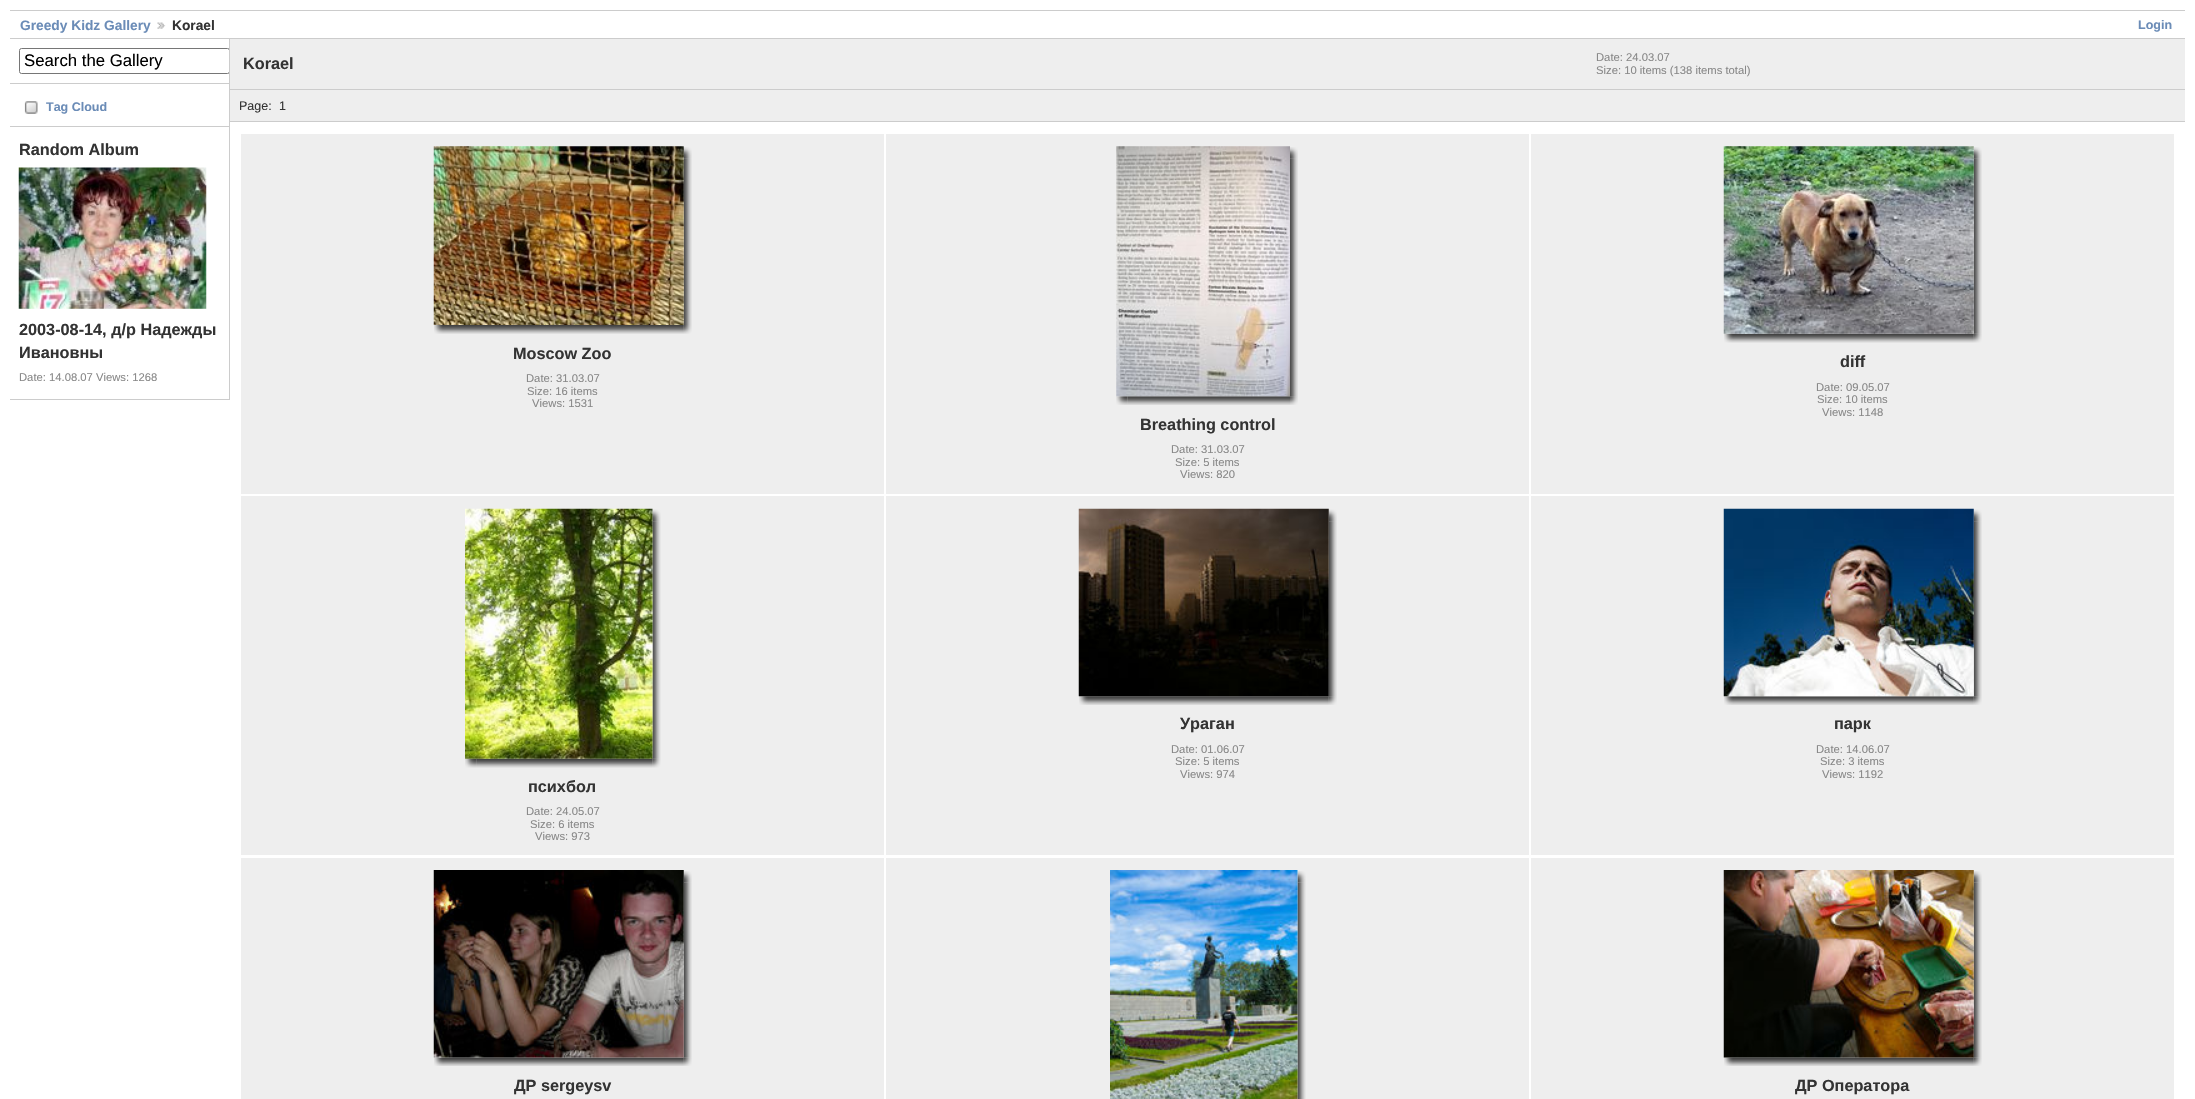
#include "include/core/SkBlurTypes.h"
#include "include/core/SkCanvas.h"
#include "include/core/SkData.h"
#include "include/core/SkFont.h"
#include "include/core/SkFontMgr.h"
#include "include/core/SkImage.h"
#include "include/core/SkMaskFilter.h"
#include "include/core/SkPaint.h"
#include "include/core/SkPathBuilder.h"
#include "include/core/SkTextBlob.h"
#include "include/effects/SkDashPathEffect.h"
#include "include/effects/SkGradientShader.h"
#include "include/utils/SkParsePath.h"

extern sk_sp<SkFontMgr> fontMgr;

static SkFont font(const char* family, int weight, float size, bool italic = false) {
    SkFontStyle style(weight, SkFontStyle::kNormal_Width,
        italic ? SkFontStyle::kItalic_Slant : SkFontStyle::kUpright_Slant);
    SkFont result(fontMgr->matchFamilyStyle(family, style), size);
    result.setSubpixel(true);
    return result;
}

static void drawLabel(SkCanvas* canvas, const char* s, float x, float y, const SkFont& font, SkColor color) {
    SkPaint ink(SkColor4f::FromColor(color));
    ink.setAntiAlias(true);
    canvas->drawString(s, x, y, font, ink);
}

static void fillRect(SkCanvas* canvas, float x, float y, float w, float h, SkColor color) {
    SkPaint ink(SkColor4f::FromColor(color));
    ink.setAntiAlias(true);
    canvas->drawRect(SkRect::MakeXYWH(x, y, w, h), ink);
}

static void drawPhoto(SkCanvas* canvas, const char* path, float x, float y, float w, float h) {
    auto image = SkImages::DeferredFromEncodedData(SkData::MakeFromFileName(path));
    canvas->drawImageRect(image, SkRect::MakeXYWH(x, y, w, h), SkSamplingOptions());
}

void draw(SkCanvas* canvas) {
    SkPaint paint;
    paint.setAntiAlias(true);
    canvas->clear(0xFFFFFFFF);
    fillRect(canvas, 10, 10, 2175, 1, 0xFFCCCCCC);
    fillRect(canvas, 10, 38, 2175, 1, 0xFFCCCCCC);
    SkFont font1 = font("Liberation Sans", 700, 13.75f);
    drawLabel(canvas, "Greedy Kidz Gallery", 20, 30, font1, 0xFF6B8CB7);
    drawPhoto(canvas, "assets/img1.png", 157, 22, 9, 7);
    drawLabel(canvas, "Korael", 172, 30, font1, 0xFF333333);
    SkFont font2 = font("Liberation Sans", 700, 12.5f);
    drawLabel(canvas, "Login", 2138, 29, font2, 0xFF6B8CB7);
    fillRect(canvas, 229, 39, 1, 361, 0xFFCCCCCC);
    fillRect(canvas, 10, 83, 219, 1, 0xFFCCCCCC);
    canvas->save();
    canvas->clipRect(SkRect::MakeXYWH(10, 39, 219, 361));
    paint.setStroke(true);
    paint.setStrokeWidth(1);
    paint.setColor(0xFF767676);
    canvas->drawRoundRect(SkRect::MakeXYWH(19.5f, 48.5f, 210, 25), 2, 2, paint);
    canvas->restore();
    SkFont font3 = font("Liberation Sans", 400, 16.75f);
    drawLabel(canvas, "Search the Gallery", 24, 66, font3, 0xFF000000);
    fillRect(canvas, 10, 126, 219, 1, 0xFFCCCCCC);
    drawPhoto(canvas, "assets/img2.png", 24, 101, 14, 13);
    drawLabel(canvas, "Tag Cloud", 46, 111, font2, 0xFF6B8CB7);
    fillRect(canvas, 10, 399, 219, 1, 0xFFCCCCCC);
    SkFont font4 = font("Liberation Sans", 700, 16.25f);
    drawLabel(canvas, "Random Album", 19, 155, font4, 0xFF333333);
    drawPhoto(canvas, "assets/img3.png", 18, 167, 189, 142);
    drawLabel(canvas, "2003-08-14, д/р Надежды", 19, 335, font4, 0xFF333333);
    drawLabel(canvas, "Ивановны", 19, 358, font4, 0xFF333333);
    SkFont font5 = font("Liberation Sans", 400, 11.25f);
    drawLabel(canvas, "Date: 14.08.07 Views: 1268", 19, 381, font5, 0xFF888888);
    fillRect(canvas, 230, 39, 1955, 50, 0xFFEEEEEE);
    fillRect(canvas, 230, 89, 1955, 1, 0xFFCCCCCC);
    drawLabel(canvas, "Korael", 243, 69, font4, 0xFF333333);
    drawLabel(canvas, "Date: 24.03.07", 1596, 61, font5, 0xFF888888);
    drawLabel(canvas, "Size: 10 items (138 items total)", 1596, 74, font5, 0xFF888888);
    fillRect(canvas, 230, 90, 1955, 31, 0xFFEEEEEE);
    fillRect(canvas, 230, 121, 1955, 1, 0xFFCCCCCC);
    SkFont font6 = font("Liberation Sans", 400, 12.5f);
    drawLabel(canvas, "Page:", 239, 110, font6, 0xFF333333);
    drawLabel(canvas, "1", 279, 110, font6, 0xFF333333);
    fillRect(canvas, 241, 134, 643, 360, 0xFFEEEEEE);
    drawPhoto(canvas, "assets/img5.png", 683, 147, 9, 12);
    drawPhoto(canvas, "assets/img6.png", 683, 158, 9, 167);
    drawPhoto(canvas, "assets/img4.png", 433, 146, 251, 179);
    drawPhoto(canvas, "assets/img7.png", 434, 325, 11, 9);
    drawPhoto(canvas, "assets/img8.png", 445, 325, 239, 9);
    drawPhoto(canvas, "assets/img9.png", 683, 325, 9, 9);
    drawLabel(canvas, "Moscow Zoo", 513, 359, font4, 0xFF333333);
    drawLabel(canvas, "Date: 31.03.07", 526, 382, font5, 0xFF888888);
    drawLabel(canvas, "Size: 16 items", 527, 395, font5, 0xFF888888);
    drawLabel(canvas, "Views: 1531", 532, 407, font5, 0xFF888888);
    fillRect(canvas, 1531, 134, 643, 360, 0xFFEEEEEE);
    drawPhoto(canvas, "assets/img5.png", 1973, 147, 9, 12);
    drawPhoto(canvas, "assets/img11.png", 1973, 158, 9, 176);
    drawPhoto(canvas, "assets/img12.png", 1724, 333, 11, 10);
    drawPhoto(canvas, "assets/img13.png", 1735, 333, 239, 10);
    drawPhoto(canvas, "assets/img14.png", 1973, 333, 9, 10);
    drawPhoto(canvas, "assets/img10.png", 1723, 146, 251, 188);
    drawLabel(canvas, "diff", 1840, 367, font4, 0xFF333333);
    drawLabel(canvas, "Date: 09.05.07", 1816, 391, font5, 0xFF888888);
    drawLabel(canvas, "Size: 10 items", 1817, 403, font5, 0xFF888888);
    drawLabel(canvas, "Views: 1148", 1822, 416, font5, 0xFF888888);
    fillRect(canvas, 886, 134, 643, 360, 0xFFEEEEEE);
    drawPhoto(canvas, "assets/img18.png", 1116, 396, 12, 9);
    drawPhoto(canvas, "assets/img19.png", 1127, 396, 163, 9);
    drawPhoto(canvas, "assets/img15.png", 1116, 146, 174, 251);
    drawPhoto(canvas, "assets/img16.png", 1290, 147, 8, 12);
    drawPhoto(canvas, "assets/img17.png", 1290, 158, 8, 239);
    drawPhoto(canvas, "assets/img20.png", 1290, 396, 8, 9);
    drawLabel(canvas, "Breathing control", 1140, 430, font4, 0xFF333333);
    drawLabel(canvas, "Date: 31.03.07", 1171, 453, font5, 0xFF888888);
    drawLabel(canvas, "Size: 5 items", 1175, 466, font5, 0xFF888888);
    drawLabel(canvas, "Views: 820", 1180, 478, font5, 0xFF888888);
    fillRect(canvas, 886, 496, 643, 359, 0xFFEEEEEE);
    drawPhoto(canvas, "assets/img22.png", 1328, 509, 9, 13);
    drawPhoto(canvas, "assets/img23.png", 1328, 521, 9, 176);
    drawPhoto(canvas, "assets/img24.png", 1079, 696, 11, 9);
    drawPhoto(canvas, "assets/img25.png", 1090, 696, 239, 9);
    drawPhoto(canvas, "assets/img26.png", 1328, 696, 9, 9);
    drawPhoto(canvas, "assets/img21.png", 1078, 508, 251, 189);
    drawLabel(canvas, "Ураган", 1180, 729, font4, 0xFF333333);
    drawLabel(canvas, "Date: 01.06.07", 1171, 753, font5, 0xFF888888);
    drawLabel(canvas, "Size: 5 items", 1175, 765, font5, 0xFF888888);
    drawLabel(canvas, "Views: 974", 1180, 778, font5, 0xFF888888);
    fillRect(canvas, 1531, 496, 643, 359, 0xFFEEEEEE);
    drawPhoto(canvas, "assets/img28.png", 1973, 509, 9, 13);
    drawPhoto(canvas, "assets/img29.png", 1973, 521, 9, 176);
    drawPhoto(canvas, "assets/img30.png", 1724, 696, 11, 9);
    drawPhoto(canvas, "assets/img25.png", 1735, 696, 239, 9);
    drawPhoto(canvas, "assets/img31.png", 1973, 696, 9, 9);
    drawPhoto(canvas, "assets/img27.png", 1723, 508, 251, 189);
    drawLabel(canvas, "парк", 1834, 729, font4, 0xFF333333);
    drawLabel(canvas, "Date: 14.06.07", 1816, 753, font5, 0xFF888888);
    drawLabel(canvas, "Size: 3 items", 1820, 765, font5, 0xFF888888);
    drawLabel(canvas, "Views: 1192", 1822, 778, font5, 0xFF888888);
    fillRect(canvas, 241, 496, 643, 359, 0xFFEEEEEE);
    drawPhoto(canvas, "assets/img33.png", 652, 509, 9, 13);
    drawPhoto(canvas, "assets/img34.png", 652, 521, 9, 238);
    drawPhoto(canvas, "assets/img35.png", 465, 758, 12, 10);
    drawPhoto(canvas, "assets/img36.png", 476, 758, 177, 10);
    drawPhoto(canvas, "assets/img37.png", 652, 758, 9, 10);
    drawPhoto(canvas, "assets/img32.png", 465, 508, 188, 251);
    drawLabel(canvas, "психбол", 528, 792, font4, 0xFF333333);
    drawLabel(canvas, "Date: 24.05.07", 526, 815, font5, 0xFF888888);
    drawLabel(canvas, "Size: 6 items", 530, 828, font5, 0xFF888888);
    drawLabel(canvas, "Views: 973", 535, 840, font5, 0xFF888888);
    fillRect(canvas, 241, 858, 643, 241, 0xFFEEEEEE);
    drawPhoto(canvas, "assets/img39.png", 683, 871, 9, 12);
    drawPhoto(canvas, "assets/img40.png", 683, 882, 9, 176);
    drawPhoto(canvas, "assets/img41.png", 434, 1057, 11, 9);
    drawPhoto(canvas, "assets/img42.png", 445, 1057, 239, 9);
    drawPhoto(canvas, "assets/img43.png", 683, 1057, 9, 9);
    drawPhoto(canvas, "assets/img38.png", 433, 870, 251, 188);
    drawLabel(canvas, "ДР sergeysv", 514, 1091, font4, 0xFF333333);
    fillRect(canvas, 886, 858, 643, 241, 0xFFEEEEEE);
    drawPhoto(canvas, "assets/img45.png", 1297, 871, 9, 12);
    drawPhoto(canvas, "assets/img46.png", 1297, 882, 9, 217);
    drawPhoto(canvas, "assets/img44.png", 1110, 870, 188, 229);
    fillRect(canvas, 1531, 858, 643, 241, 0xFFEEEEEE);
    drawPhoto(canvas, "assets/img39.png", 1973, 871, 9, 12);
    drawPhoto(canvas, "assets/img40.png", 1973, 882, 9, 176);
    drawPhoto(canvas, "assets/img41.png", 1724, 1057, 11, 9);
    drawPhoto(canvas, "assets/img42.png", 1735, 1057, 239, 9);
    drawPhoto(canvas, "assets/img43.png", 1973, 1057, 9, 9);
    drawPhoto(canvas, "assets/img47.png", 1723, 870, 251, 188);
    drawLabel(canvas, "ДР Оператора", 1795, 1091, font4, 0xFF333333);
}
